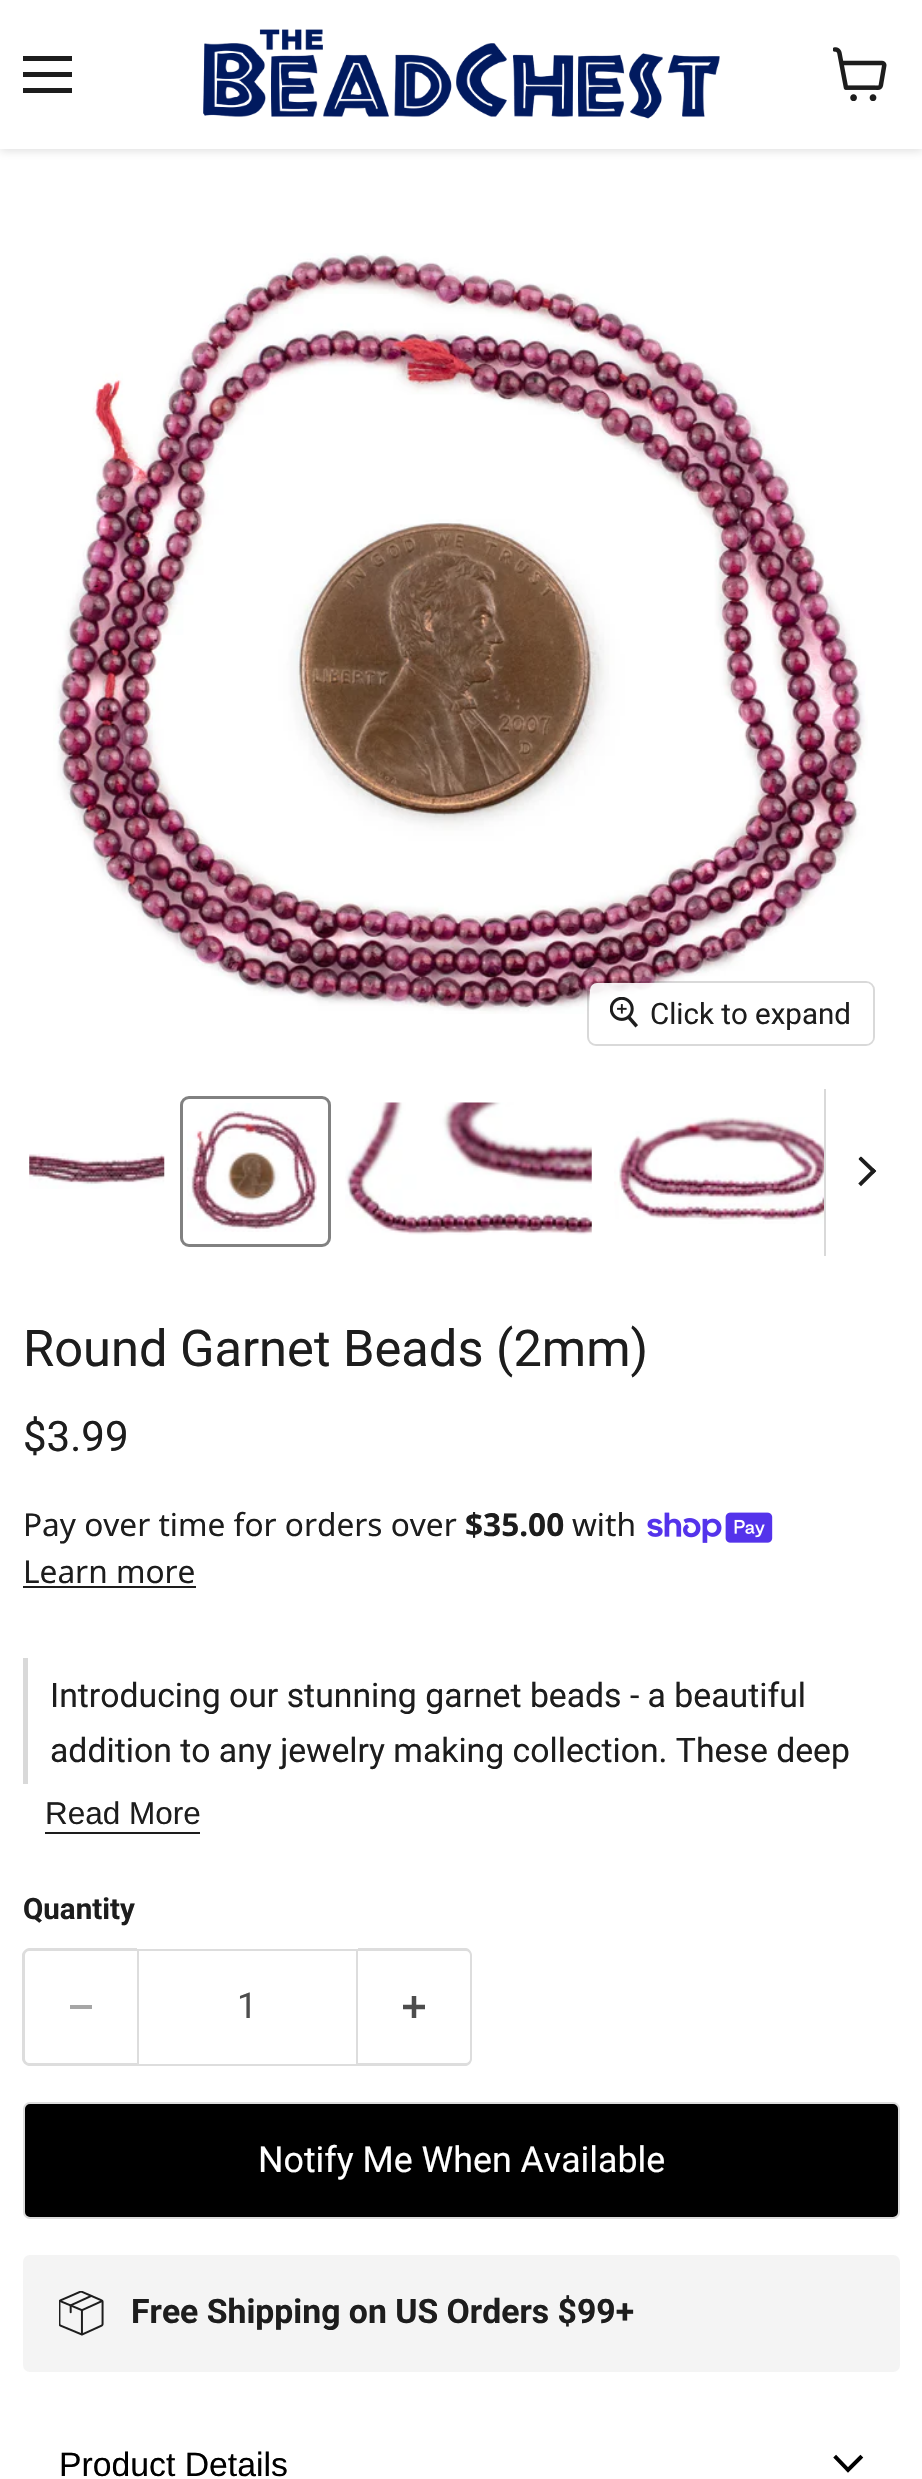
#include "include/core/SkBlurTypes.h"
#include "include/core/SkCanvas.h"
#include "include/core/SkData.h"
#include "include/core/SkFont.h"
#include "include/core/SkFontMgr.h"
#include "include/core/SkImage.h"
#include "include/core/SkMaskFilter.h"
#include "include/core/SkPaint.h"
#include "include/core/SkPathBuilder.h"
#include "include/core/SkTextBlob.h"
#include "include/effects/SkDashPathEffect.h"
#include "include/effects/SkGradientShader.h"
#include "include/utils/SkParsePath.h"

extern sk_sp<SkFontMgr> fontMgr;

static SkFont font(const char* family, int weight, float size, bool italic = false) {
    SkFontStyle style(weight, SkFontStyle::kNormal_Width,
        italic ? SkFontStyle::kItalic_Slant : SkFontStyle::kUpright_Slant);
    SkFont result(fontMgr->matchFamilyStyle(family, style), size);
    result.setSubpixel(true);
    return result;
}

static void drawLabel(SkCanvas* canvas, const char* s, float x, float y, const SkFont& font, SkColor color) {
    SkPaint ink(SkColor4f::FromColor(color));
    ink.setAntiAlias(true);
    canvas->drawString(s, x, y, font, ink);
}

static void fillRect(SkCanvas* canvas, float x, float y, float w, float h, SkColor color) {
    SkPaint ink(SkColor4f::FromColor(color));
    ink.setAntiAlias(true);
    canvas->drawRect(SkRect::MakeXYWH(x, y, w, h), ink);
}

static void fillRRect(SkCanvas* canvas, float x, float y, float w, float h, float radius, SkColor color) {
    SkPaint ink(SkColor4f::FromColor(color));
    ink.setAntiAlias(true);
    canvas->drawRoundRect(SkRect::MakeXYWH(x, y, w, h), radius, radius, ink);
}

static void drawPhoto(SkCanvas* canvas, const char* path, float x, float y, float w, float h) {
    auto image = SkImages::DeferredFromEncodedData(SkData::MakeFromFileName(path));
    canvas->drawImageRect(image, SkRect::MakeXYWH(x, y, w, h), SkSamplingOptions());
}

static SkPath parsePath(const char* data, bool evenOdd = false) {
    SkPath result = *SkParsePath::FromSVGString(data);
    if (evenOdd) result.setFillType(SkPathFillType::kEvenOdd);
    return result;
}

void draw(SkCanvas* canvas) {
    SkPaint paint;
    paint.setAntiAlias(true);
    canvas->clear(0xFFFFFFFF);
    paint.setColor(0x40808080);
    paint.setMaskFilter(SkMaskFilter::MakeBlur(kNormal_SkBlurStyle, 4.5f));
    canvas->drawRect(SkRect::MakeXYWH(0, 2, 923, 149), paint);
    paint.setMaskFilter(nullptr);
    fillRect(canvas, 0, 0, 922, 149, 0xFFFFFFFF);
    fillRect(canvas, 23, 56, 49, 5, 0xFF1D1D1D);
    fillRect(canvas, 23, 72, 49, 5, 0xFF1D1D1D);
    fillRect(canvas, 23, 88, 49, 5, 0xFF1D1D1D);
    drawPhoto(canvas, "assets/img1.png", 203, 29, 517, 90);
    drawPhoto(canvas, "assets/img2.png", 833, 47, 54, 54);
    drawPhoto(canvas, "assets/img3.png", 53, 253, 815, 761);
    paint.setStroke(true);
    paint.setStrokeWidth(2);
    paint.setColor(0x26000000);
    canvas->drawRoundRect(SkRect::MakeXYWH(588, 982, 286, 63), 8, 8, paint);
    fillRRect(canvas, 590, 983, 283, 61, 7, 0xE6FFFFFF);
    drawPhoto(canvas, "assets/img4.png", 610, 997, 28, 31);
    SkFont font1 = font("Roboto", 400, 29.5f);
    drawLabel(canvas, "Click to expand", 650, 1024, font1, 0xFF1D1D1D);
    drawPhoto(canvas, "assets/img5.png", 29, 1153, 136, 36);
    paint.setStrokeWidth(3);
    paint.setColor(0xFF818181);
    canvas->drawRoundRect(SkRect::MakeXYWH(181.5f, 1097.5f, 148, 148), 7.5f, 7.5f, paint);
    drawPhoto(canvas, "assets/img6.png", 187, 1103, 130, 129);
    drawPhoto(canvas, "assets/img7.png", 345, 1102, 247, 133);
    drawPhoto(canvas, "assets/img8.png", 614, 1117, 210, 107);
    fillRect(canvas, 824, 1089, 2, 167, 0xFFD9D9D9);
    canvas->save();
    canvas->clipPath(parsePath("M858.5 1188V1156.5H876.5V1188Z"), true);
    paint.setStrokeWidth(3.9f);
    paint.setStrokeCap(SkPaint::kSquare_Cap);
    paint.setColor(0xFF1D1D1D);
    canvas->drawPath(parsePath("M873.5 1171L861 1159"), paint);
    canvas->restore();
    canvas->drawPath(parsePath("M873.5 1171L861 1183.5"), paint);
    SkFont font2 = font("Roboto", 400, 50.6f);
    drawLabel(canvas, "Round Garnet Beads (2mm)", 23, 1366, font2, 0xFF1D1D1D);
    SkFont font3 = font("Roboto", 400, 42);
    drawLabel(canvas, "$3.99", 23, 1451, font3, 0xFF1D1D1D);
    SkFont font4 = font("Noto Sans", 400, 31.6f);
    drawLabel(canvas, "Pay over time for orders over", 23, 1536, font4, 0xFF1D1D1D);
    SkFont font5 = font("Noto Sans", 700, 31.6f);
    drawLabel(canvas, "$35.00", 465, 1536, font5, 0xFF1D1D1D);
    drawLabel(canvas, "with", 572, 1536, font4, 0xFF1D1D1D);
    drawPhoto(canvas, "assets/img9.png", 647, 1512, 126, 31);
    drawLabel(canvas, "Learn more", 23, 1583, font4, 0xFF1D1D1D);
    fillRect(canvas, 23, 1586, 173, 2, 0xFF1D1D1D);
    fillRect(canvas, 23, 1658, 5, 126, 0xFFD9D9D9);
    SkFont font6 = font("Roboto", 400, 33.75f);
    drawLabel(canvas, "Introducing our stunning garnet beads - a beautiful", 50, 1707, font6, 0xFF1D1D1D);
    drawLabel(canvas, "addition to any jewelry making collection. These deep", 50, 1762, font6, 0xFF1D1D1D);
    fillRect(canvas, 45, 1832, 155, 2, 0xFF1D1D1D);
    SkFont font7 = font("Liberation Sans", 400, 31.5f);
    drawLabel(canvas, "Read More", 45, 1824, font7, 0xFF1D1D1D);
    SkFont font8 = font("Roboto", 700, 29.5f);
    drawLabel(canvas, "Quantity", 23, 1919, font8, 0xFF1D1D1D);
    paint.setStroke(false);
    paint.setColor(0xFFDDDDDD);
    canvas->drawPath(parsePath("M29 1948H137V2066H29C26 2066 22 2062 22 2059V1955C22 1952 26 1948 29 1948ZM29 1951H137V2063H29C27 2063 25 2061 25 2059V1955C25 1953 27 1951 29 1951Z", true), paint);
    fillRect(canvas, 70, 2005, 22, 4, 0xFFA6A6A6);
    paint.setStroke(true);
    paint.setStrokeWidth(2);
    paint.setStrokeCap(SkPaint::kButt_Cap);
    canvas->drawRect(SkRect::MakeXYWH(138, 1950, 219, 115), paint);
    SkFont font9 = font("Roboto", 400, 35.75f);
    drawLabel(canvas, "1", 237, 2018, font9, 0xFF4D4D4D);
    paint.setStroke(false);
    canvas->drawPath(parsePath("M358 1948H466C469 1948 472 1952 472 1955V2059C472 2062 469 2066 466 2066H358ZM358 1951H466C468 1951 470 1953 470 1955V2059C470 2061 468 2063 466 2063H358Z", true), paint);
    drawPhoto(canvas, "assets/img10.png", 403, 1996, 22, 22);
    paint.setColor(0xFF000000);
    canvas->drawRoundRect(SkRect::MakeXYWH(24, 2103, 875, 115), 6, 6, paint);
    paint.setStroke(true);
    paint.setColor(0xFFDDDDDD);
    canvas->drawRoundRect(SkRect::MakeXYWH(24, 2103, 875, 115), 6, 6, paint);
    drawLabel(canvas, "Notify Me When Available", 258, 2172, font9, 0xFFFFFFFF);
    fillRRect(canvas, 23, 2255, 877, 117, 7, 0xFFF4F4F4);
    drawPhoto(canvas, "assets/img11.png", 59, 2291, 45, 45);
    SkFont font10 = font("Roboto", 700, 33.75f);
    drawLabel(canvas, "Free Shipping on US Orders $99+", 131, 2323, font10, 0xFF1D1D1D);
    SkFont font11 = font("Liberation Sans", 400, 33.75f);
    drawLabel(canvas, "Product Details", 59, 2476, font11, 0xFF000000);
    paint.setStrokeWidth(3.9f);
    paint.setStrokeCap(SkPaint::kSquare_Cap);
    paint.setColor(0xFF000000);
    canvas->drawPath(parsePath("M848 2470L860.5 2457.5M848 2470L836 2457.5"), paint);
}
